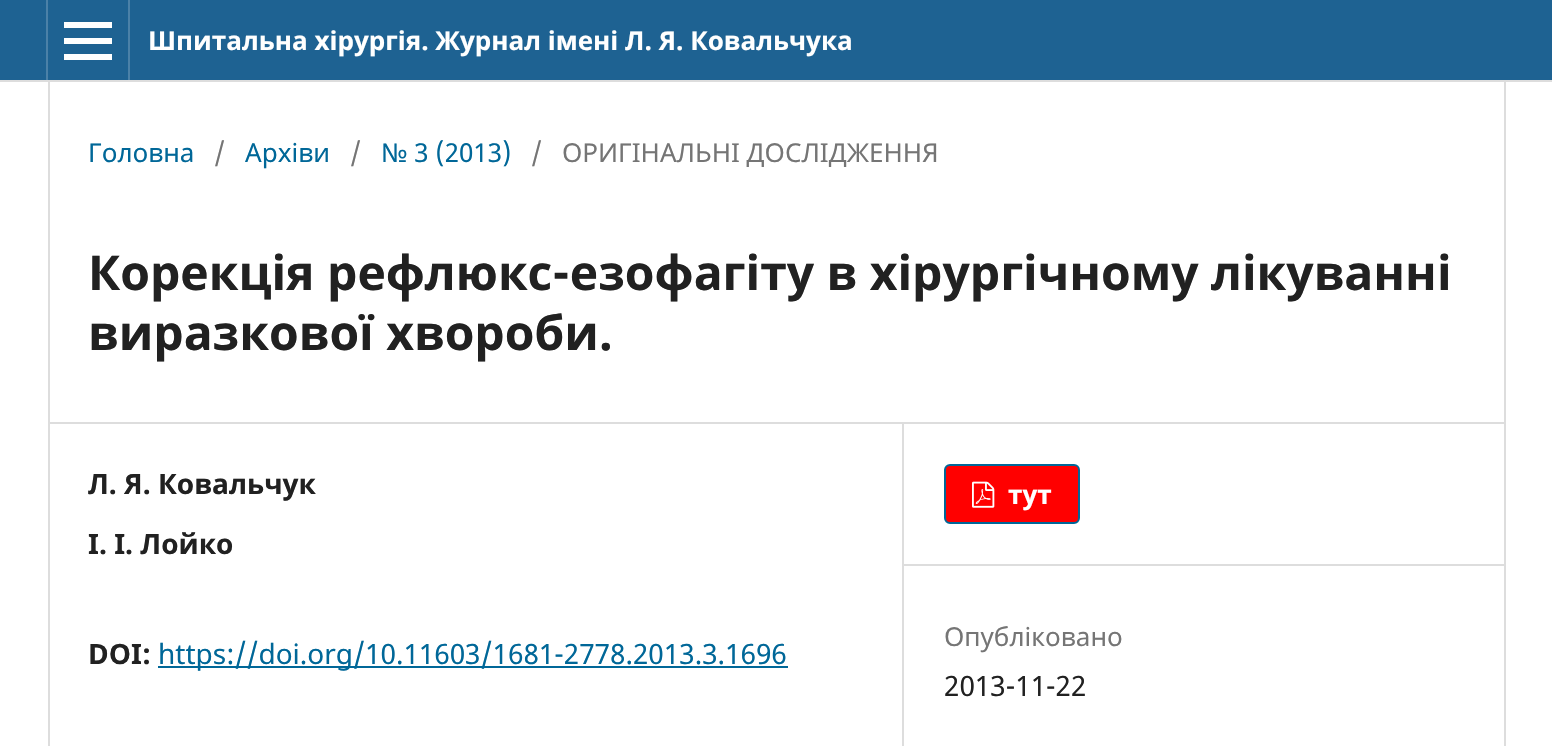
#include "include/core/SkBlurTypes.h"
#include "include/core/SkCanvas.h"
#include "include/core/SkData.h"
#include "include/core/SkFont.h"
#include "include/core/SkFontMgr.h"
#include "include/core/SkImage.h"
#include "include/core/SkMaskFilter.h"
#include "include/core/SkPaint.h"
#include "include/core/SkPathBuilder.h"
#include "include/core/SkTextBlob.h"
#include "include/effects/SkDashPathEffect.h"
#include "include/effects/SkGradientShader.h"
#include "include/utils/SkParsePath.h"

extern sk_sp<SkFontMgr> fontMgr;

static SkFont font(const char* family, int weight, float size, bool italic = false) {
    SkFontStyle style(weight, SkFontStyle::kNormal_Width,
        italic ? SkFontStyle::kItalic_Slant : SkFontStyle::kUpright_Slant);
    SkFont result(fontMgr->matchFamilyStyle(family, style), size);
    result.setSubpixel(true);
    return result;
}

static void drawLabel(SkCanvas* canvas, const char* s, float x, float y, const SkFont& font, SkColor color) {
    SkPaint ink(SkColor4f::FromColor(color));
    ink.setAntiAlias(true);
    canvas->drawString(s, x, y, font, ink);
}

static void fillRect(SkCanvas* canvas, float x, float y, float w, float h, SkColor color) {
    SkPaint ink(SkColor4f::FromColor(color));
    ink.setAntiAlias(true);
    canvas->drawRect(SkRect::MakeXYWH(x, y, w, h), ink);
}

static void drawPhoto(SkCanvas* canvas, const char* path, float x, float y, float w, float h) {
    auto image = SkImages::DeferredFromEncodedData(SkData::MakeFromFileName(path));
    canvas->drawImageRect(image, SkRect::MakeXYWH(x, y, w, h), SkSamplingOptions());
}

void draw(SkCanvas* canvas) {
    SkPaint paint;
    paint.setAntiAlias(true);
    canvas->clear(0xFFFFFFFF);
    fillRect(canvas, 0, 0, 1552, 80, 0xFF1E6292);
    fillRect(canvas, 0, 80, 1552, 2, 0xFFDDDDDD);
    fillRect(canvas, 46, 0, 2, 80, 0xFF4B81A8);
    fillRect(canvas, 128, 0, 2, 80, 0xFF4B81A8);
    fillRect(canvas, 64, 54, 48, 6, 0xFFFFFFFF);
    fillRect(canvas, 64, 22, 48, 6, 0xFFFFFFFF);
    fillRect(canvas, 64, 38, 48, 6, 0xFFFFFFFF);
    SkFont font1 = font("Noto Sans", 700, 26.05f);
    drawLabel(canvas, "Шпитальна хірургія. Журнал імені Л. Я. Ковальчука", 148, 50, font1, 0xFFFFFFFF);
    fillRect(canvas, 48, 422, 1456, 2, 0xFFDDDDDD);
    fillRect(canvas, 48, 82, 2, 664, 0xFFDDDDDD);
    SkFont font2 = font("Noto Sans", 400, 26.05f);
    drawLabel(canvas, "Головна", 88, 162, font2, 0xFF006798);
    drawLabel(canvas, "/", 214, 162, font2, 0xFF757575);
    drawLabel(canvas, "Архіви", 245, 162, font2, 0xFF006798);
    drawLabel(canvas, "/", 350, 162, font2, 0xFF757575);
    drawLabel(canvas, "№ 3 (2013)", 381, 162, font2, 0xFF006798);
    drawLabel(canvas, "/", 531, 162, font2, 0xFF757575);
    drawLabel(canvas, "ОРИГІНАЛЬНІ ДОСЛІДЖЕННЯ", 562, 162, font2, 0xFF757575);
    SkFont font3 = font("Noto Sans", 700, 48);
    drawLabel(canvas, "Корекція рефлюкс-езофагіту в хірургічному лікуванні", 88, 290, font3, 0xFF212121);
    drawLabel(canvas, "виразкової хвороби.", 88, 350, font3, 0xFF212121);
    fillRect(canvas, 902, 424, 2, 322, 0xFFDDDDDD);
    SkFont font4 = font("Noto Sans", 700, 28);
    drawLabel(canvas, "Л. Я. Ковальчук", 88, 494, font4, 0xFF212121);
    drawLabel(canvas, "І. І. Лойко", 88, 554, font4, 0xFF212121);
    drawLabel(canvas, "DOI:", 88, 664, font4, 0xFF212121);
    fillRect(canvas, 158, 666, 630, 2, 0xFF006798);
    SkFont font5 = font("Noto Sans", 400, 28);
    drawLabel(canvas, "https://doi.org/10.11603/1681-2778.2013.3.1696", 158, 664, font5, 0xFF006798);
    fillRect(canvas, 904, 564, 600, 2, 0xFFDDDDDD);
    paint.setColor(0xFFFF0000);
    canvas->drawRoundRect(SkRect::MakeXYWH(945, 465, 134, 58), 5, 5, paint);
    paint.setStroke(true);
    paint.setStrokeWidth(2);
    paint.setColor(0xFF006798);
    canvas->drawRoundRect(SkRect::MakeXYWH(945, 465, 134, 58), 5, 5, paint);
    drawPhoto(canvas, "assets/img1.png", 972, 481, 23, 27);
    drawLabel(canvas, "тут", 1008, 504, font1, 0xFFFFFFFF);
    drawLabel(canvas, "Опубліковано", 944, 646, font2, 0xFF757575);
    drawLabel(canvas, "2013-11-22", 944, 696, font5, 0xFF212121);
    fillRect(canvas, 1504, 82, 2, 664, 0xFFDDDDDD);
}
